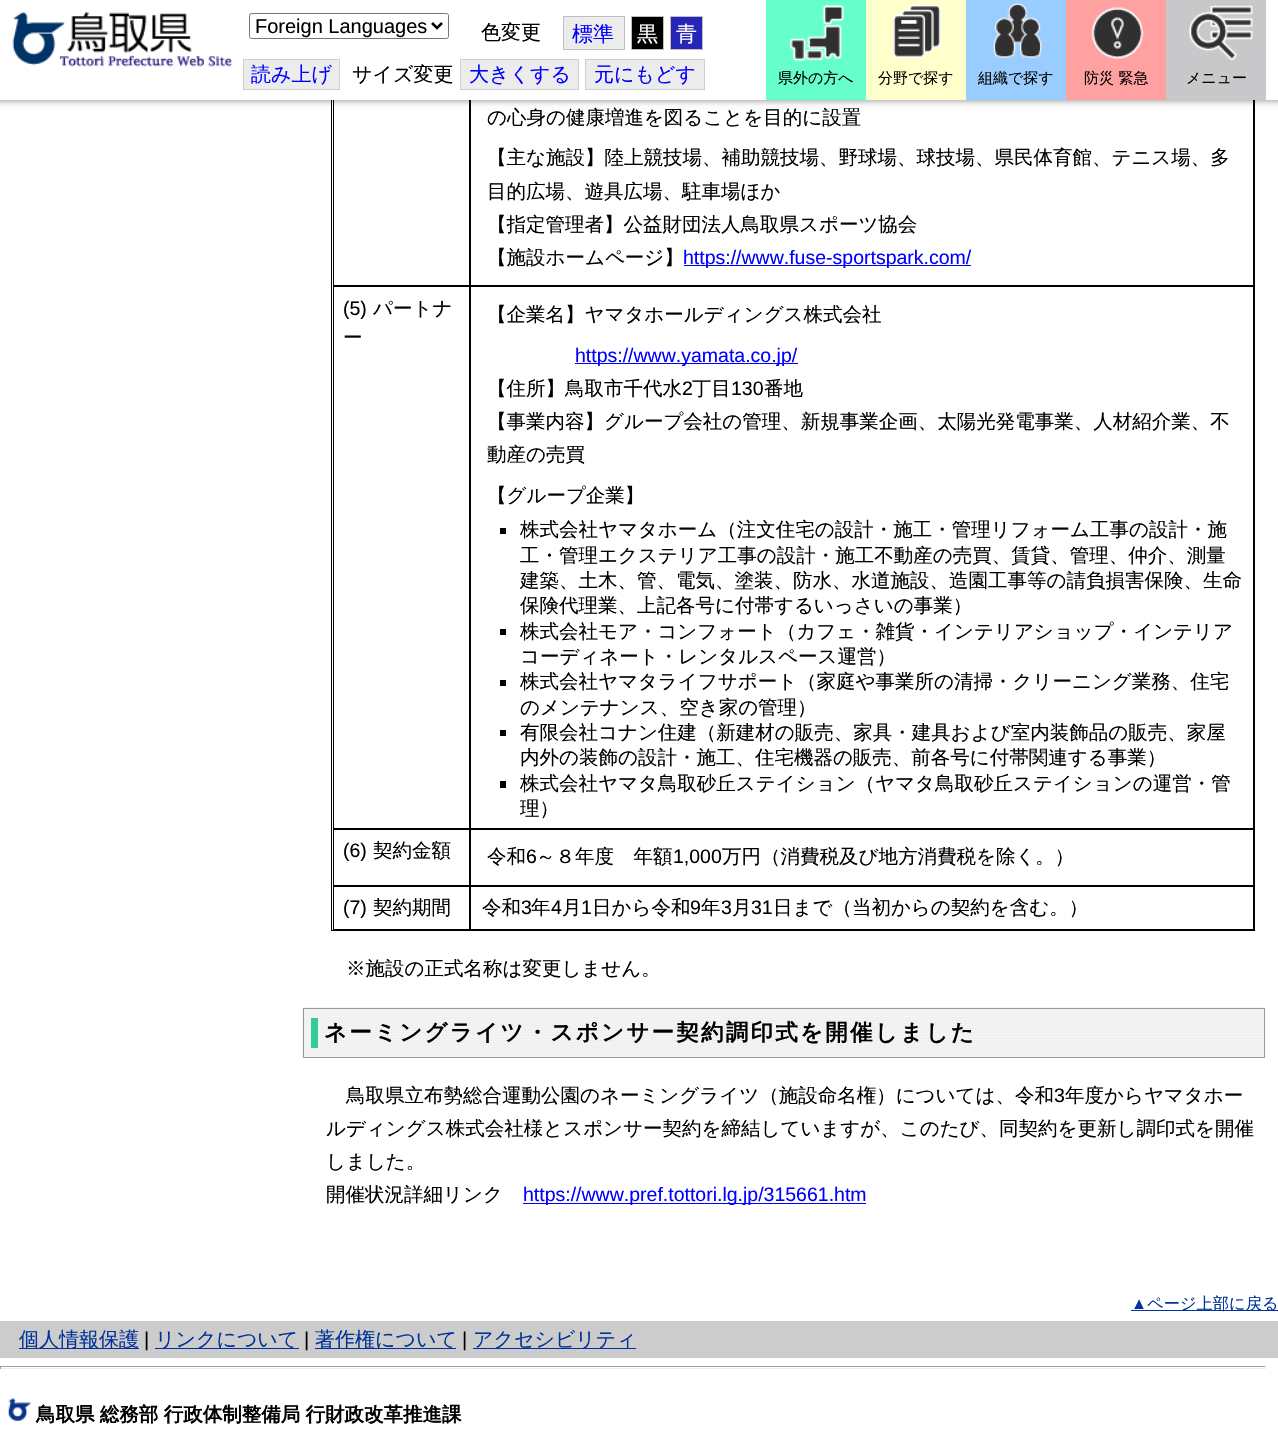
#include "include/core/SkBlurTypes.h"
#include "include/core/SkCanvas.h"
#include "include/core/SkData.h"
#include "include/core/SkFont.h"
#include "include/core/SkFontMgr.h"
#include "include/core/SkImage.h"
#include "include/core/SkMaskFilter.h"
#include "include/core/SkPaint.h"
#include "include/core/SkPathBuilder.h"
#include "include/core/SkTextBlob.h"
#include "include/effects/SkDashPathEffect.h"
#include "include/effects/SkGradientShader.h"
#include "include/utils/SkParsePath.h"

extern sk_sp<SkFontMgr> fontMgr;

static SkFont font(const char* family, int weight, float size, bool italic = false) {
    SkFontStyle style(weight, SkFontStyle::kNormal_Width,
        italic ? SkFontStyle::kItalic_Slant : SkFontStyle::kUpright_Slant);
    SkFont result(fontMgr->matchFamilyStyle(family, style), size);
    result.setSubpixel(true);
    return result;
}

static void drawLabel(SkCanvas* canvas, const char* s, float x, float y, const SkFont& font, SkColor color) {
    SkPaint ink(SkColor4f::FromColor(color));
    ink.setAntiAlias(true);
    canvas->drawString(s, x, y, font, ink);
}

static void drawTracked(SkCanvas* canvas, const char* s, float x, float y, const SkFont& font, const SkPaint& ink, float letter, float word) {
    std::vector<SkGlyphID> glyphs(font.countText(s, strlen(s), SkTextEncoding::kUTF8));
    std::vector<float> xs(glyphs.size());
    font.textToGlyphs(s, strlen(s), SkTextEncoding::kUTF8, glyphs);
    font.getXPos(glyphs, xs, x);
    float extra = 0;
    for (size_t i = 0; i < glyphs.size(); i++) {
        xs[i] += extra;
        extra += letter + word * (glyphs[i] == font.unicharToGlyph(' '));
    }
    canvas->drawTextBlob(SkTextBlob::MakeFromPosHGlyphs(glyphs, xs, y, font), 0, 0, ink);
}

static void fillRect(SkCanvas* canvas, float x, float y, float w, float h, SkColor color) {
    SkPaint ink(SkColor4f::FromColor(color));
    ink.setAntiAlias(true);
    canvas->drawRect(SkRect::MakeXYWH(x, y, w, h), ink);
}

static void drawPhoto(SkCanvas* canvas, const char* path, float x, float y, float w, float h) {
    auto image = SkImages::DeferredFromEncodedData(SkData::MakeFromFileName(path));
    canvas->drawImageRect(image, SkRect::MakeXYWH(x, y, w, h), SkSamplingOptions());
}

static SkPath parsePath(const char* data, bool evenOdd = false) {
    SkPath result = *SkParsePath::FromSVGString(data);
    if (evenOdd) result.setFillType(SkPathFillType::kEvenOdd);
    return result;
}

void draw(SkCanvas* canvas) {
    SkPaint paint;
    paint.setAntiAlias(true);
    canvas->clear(0xFFFFFFFF);
    paint.setStroke(true);
    paint.setStrokeWidth(1);
    paint.setColor(0xFF000000);
    canvas->drawRect(SkRect::MakeXYWH(331.5f, -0.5f, 923, 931), paint);
    canvas->drawRect(SkRect::MakeXYWH(333.5f, 23.5f, 136, 262), paint);
    canvas->drawRect(SkRect::MakeXYWH(470.5f, 23.5f, 783, 262), paint);
    paint.setStroke(false);
    paint.setColor(0x1A000000);
    paint.setMaskFilter(SkMaskFilter::MakeBlur(kNormal_SkBlurStyle, 3));
    canvas->drawRect(SkRect::MakeXYWH(-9, 1, 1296, 100), paint);
    paint.setMaskFilter(nullptr);
    paint.setMaskFilter(SkMaskFilter::MakeBlur(kNormal_SkBlurStyle, 3));
    canvas->drawRect(SkRect::MakeXYWH(-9, 1, 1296, 100), paint);
    paint.setMaskFilter(nullptr);
    paint.setMaskFilter(SkMaskFilter::MakeBlur(kNormal_SkBlurStyle, 3));
    canvas->drawRect(SkRect::MakeXYWH(-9, 1, 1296, 100), paint);
    paint.setMaskFilter(nullptr);
    paint.setMaskFilter(SkMaskFilter::MakeBlur(kNormal_SkBlurStyle, 3));
    canvas->drawRect(SkRect::MakeXYWH(-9, 1, 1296, 100), paint);
    paint.setMaskFilter(nullptr);
    fillRect(canvas, 0, 0, 1278, 100, 0xFFFFFFFF);
    drawPhoto(canvas, "assets/img1.png", 12, 12, 220, 55);
    paint.setStroke(true);
    paint.setColor(0xFF767676);
    canvas->drawRoundRect(SkRect::MakeXYWH(249.5f, 13.5f, 199, 25), 2, 2, paint);
    paint.setStrokeWidth(2.5f);
    paint.setColor(0xFF000000);
    canvas->drawPath(parsePath("M432 23L437 28L442 23"), paint);
    SkFont font1 = font("Liberation Sans", 400, 20);
    drawLabel(canvas, "Foreign Languages", 255, 33, font1, 0xFF000000);
    SkFont font2 = font("WenQuanYi Zen Hei", 500, 20);
    drawLabel(canvas, "色変更", 481, 39, font2, 0xFF000000);
    paint.setStroke(false);
    paint.setColor(0xFFECECEC);
    canvas->drawRect(SkRect::MakeXYWH(563.5f, 16.5f, 61, 33), paint);
    paint.setStroke(true);
    paint.setStrokeWidth(1);
    paint.setColor(0xFFBFBFBF);
    canvas->drawRect(SkRect::MakeXYWH(563.5f, 16.5f, 61, 33), paint);
    SkFont font3 = font("WenQuanYi Zen Hei", 500, 21);
    drawLabel(canvas, "標準", 572, 41, font3, 0xFF0000FF);
    paint.setStroke(false);
    paint.setColor(0xFF000000);
    canvas->drawRect(SkRect::MakeXYWH(631.5f, 16.5f, 32, 33), paint);
    paint.setStroke(true);
    paint.setColor(0xFFBFBFBF);
    canvas->drawRect(SkRect::MakeXYWH(631.5f, 16.5f, 32, 33), paint);
    drawLabel(canvas, "黒", 637, 41, font3, 0xFFFFFFFF);
    paint.setStroke(false);
    paint.setColor(0xFF2525B8);
    canvas->drawRect(SkRect::MakeXYWH(670.5f, 16.5f, 32, 33), paint);
    paint.setStroke(true);
    paint.setColor(0xFFBFBFBF);
    canvas->drawRect(SkRect::MakeXYWH(670.5f, 16.5f, 32, 33), paint);
    drawLabel(canvas, "青", 676, 41, font3, 0xFFFFFFFF);
    paint.setStroke(false);
    paint.setColor(0xFFECECEC);
    canvas->drawRect(SkRect::MakeXYWH(243.5f, 59.5f, 96, 30), paint);
    paint.setStroke(true);
    paint.setColor(0xFFCECECE);
    canvas->drawRect(SkRect::MakeXYWH(243.5f, 59.5f, 96, 30), paint);
    drawLabel(canvas, "読み上げ", 251, 81, font2, 0xFF0000FF);
    drawLabel(canvas, "サイズ変更", 352, 81, font2, 0xFF000000);
    fillRect(canvas, 461, 60, 117, 29, 0xFFECECEC);
    drawLabel(canvas, "大きくする", 469, 81, font2, 0xFF0000FF);
    fillRect(canvas, 460, 59, 119, 1, 0xFFCECECE);
    fillRect(canvas, 460, 89, 29, 1, 0xFFCECECE);
    fillRect(canvas, 460, 59, 1, 31, 0xFFCECECE);
    fillRect(canvas, 578, 59, 1, 31, 0xFFCECECE);
    fillRect(canvas, 489, 89, 90, 1, 0xFFCECECE);
    fillRect(canvas, 586, 60, 118, 29, 0xFFECECEC);
    drawLabel(canvas, "元にもどす", 594, 81, font2, 0xFF0000FF);
    fillRect(canvas, 585, 59, 120, 1, 0xFFCECECE);
    fillRect(canvas, 585, 89, 29, 1, 0xFFCECECE);
    fillRect(canvas, 585, 59, 1, 31, 0xFFCECECE);
    fillRect(canvas, 704, 59, 1, 31, 0xFFCECECE);
    fillRect(canvas, 614, 89, 91, 1, 0xFFCECECE);
    fillRect(canvas, 766, 0, 100, 100, 0xFF66FFCC);
    drawPhoto(canvas, "assets/img2.png", 789, 4, 55, 58);
    SkFont font4 = font("WenQuanYi Zen Hei", 500, 15);
    drawLabel(canvas, "県外の方へ", 778, 83, font4, 0xFF000000);
    fillRect(canvas, 866, 0, 100, 100, 0xFFFFFFCC);
    drawPhoto(canvas, "assets/img3.png", 892, 4, 50, 55);
    drawLabel(canvas, "分野で探す", 878, 83, font4, 0xFF000000);
    fillRect(canvas, 966, 0, 100, 100, 0xFF99CCFF);
    drawPhoto(canvas, "assets/img4.png", 993, 2, 50, 56);
    drawLabel(canvas, "組織で探す", 978, 83, font4, 0xFF000000);
    fillRect(canvas, 1066, 0, 100, 100, 0xFFFFA1A1);
    drawPhoto(canvas, "assets/img5.png", 1091, 7, 53, 52);
    drawLabel(canvas, "防災 緊急", 1084, 83, font4, 0xFF000000);
    fillRect(canvas, 1166, 0, 100, 100, 0xFFC8C8CB);
    drawPhoto(canvas, "assets/img6.png", 1188, 5, 65, 56);
    drawLabel(canvas, "メニュー", 1186, 83, font4, 0xFF000000);
    SkFont font5 = font("WenQuanYi Zen Hei", 500, 19.5f);
    drawLabel(canvas, "の心身の健康増進を図ることを目的に設置", 487, 124, font5, 0xFF000000);
    drawLabel(canvas, "【主な施設】陸上競技場、補助競技場、野球場、球技場、県民体育館、テニス場、多", 487, 164, font5, 0xFF000000);
    drawLabel(canvas, "目的広場、遊具広場、駐車場ほか", 487, 198, font5, 0xFF000000);
    drawLabel(canvas, "【指定管理者】公益財団法人鳥取県スポーツ協会", 487, 231, font5, 0xFF000000);
    drawLabel(canvas, "【施設ホームページ】", 487, 264, font5, 0xFF000000);
    fillRect(canvas, 684, 265, 287, 1, 0xFF0000FF);
    SkFont font6 = font("Liberation Sans", 400, 19.5f);
    drawLabel(canvas, "https://www.fuse-sportspark.com/", 683, 264, font6, 0xFF0000FF);
    paint.setColor(0xFF000000);
    canvas->drawRect(SkRect::MakeXYWH(333.5f, 286.5f, 136, 542), paint);
    drawLabel(canvas, "(5)", 343, 315, font6, 0xFF000000);
    drawLabel(canvas, "パートナ", 373, 315, font5, 0xFF000000);
    drawLabel(canvas, "ー", 343, 344, font5, 0xFF000000);
    canvas->drawRect(SkRect::MakeXYWH(470.5f, 286.5f, 783, 542), paint);
    drawLabel(canvas, "【企業名】ヤマタホールディングス株式会社", 487, 321, font5, 0xFF000000);
    fillRect(canvas, 575, 363, 223, 1, 0xFF0000FF);
    drawLabel(canvas, "https://www.yamata.co.jp/", 575, 362, font6, 0xFF0000FF);
    drawLabel(canvas, "【住所】鳥取市千代水", 487, 395, font5, 0xFF000000);
    drawLabel(canvas, "2", 682, 395, font6, 0xFF000000);
    drawLabel(canvas, "丁目", 692, 395, font5, 0xFF000000);
    drawLabel(canvas, "130", 731, 395, font6, 0xFF000000);
    drawLabel(canvas, "番地", 764, 395, font5, 0xFF000000);
    drawLabel(canvas, "【事業内容】グループ会社の管理、新規事業企画、太陽光発電事業、人材紹介業、不", 487, 428, font5, 0xFF000000);
    drawLabel(canvas, "動産の売買", 487, 461, font5, 0xFF000000);
    drawLabel(canvas, "【グループ企業】", 487, 502, font5, 0xFF000000);
    fillRect(canvas, 500, 528, 6, 6, 0xFF000000);
    drawLabel(canvas, "株式会社ヤマタホーム（注文住宅の設計・施工・管理リフォーム工事の設計・施", 520, 536, font5, 0xFF000000);
    drawLabel(canvas, "工・管理エクステリア工事の設計・施工不動産の売買、賃貸、管理、仲介、測量", 520, 562, font5, 0xFF000000);
    drawLabel(canvas, "建築、土木、管、電気、塗装、防水、水道施設、造園工事等の請負損害保険、生命", 520, 587, font5, 0xFF000000);
    drawLabel(canvas, "保険代理業、上記各号に付帯するいっさいの事業）", 520, 612, font5, 0xFF000000);
    fillRect(canvas, 500, 629, 6, 6, 0xFF000000);
    drawLabel(canvas, "株式会社モア・コンフォート（カフェ・雑貨・インテリアショップ・インテリア", 520, 638, font5, 0xFF000000);
    drawLabel(canvas, "コーディネート・レンタルスペース運営）", 520, 663, font5, 0xFF000000);
    fillRect(canvas, 500, 680, 6, 6, 0xFF000000);
    drawLabel(canvas, "株式会社ヤマタライフサポート（家庭や事業所の清掃・クリーニング業務、住宅", 520, 688, font5, 0xFF000000);
    drawLabel(canvas, "のメンテナンス、空き家の管理）", 520, 714, font5, 0xFF000000);
    fillRect(canvas, 500, 730, 6, 6, 0xFF000000);
    drawLabel(canvas, "有限会社コナン住建（新建材の販売、家具・建具および室内装飾品の販売、家屋", 520, 739, font5, 0xFF000000);
    drawLabel(canvas, "内外の装飾の設計・施工、住宅機器の販売、前各号に付帯関連する事業）", 520, 764, font5, 0xFF000000);
    fillRect(canvas, 500, 781, 6, 7, 0xFF000000);
    drawLabel(canvas, "株式会社ヤマタ鳥取砂丘ステイション（ヤマタ鳥取砂丘ステイションの運営・管", 520, 790, font5, 0xFF000000);
    drawLabel(canvas, "理）", 520, 815, font5, 0xFF000000);
    canvas->drawRect(SkRect::MakeXYWH(333.5f, 829.5f, 136, 56), paint);
    drawLabel(canvas, "(6)", 343, 857, font6, 0xFF000000);
    drawLabel(canvas, "契約金額", 373, 857, font5, 0xFF000000);
    canvas->drawRect(SkRect::MakeXYWH(470.5f, 829.5f, 783, 56), paint);
    drawLabel(canvas, "令和", 487, 863, font5, 0xFF000000);
    drawLabel(canvas, "6", 526, 863, font6, 0xFF000000);
    drawLabel(canvas, "～８年度　年額", 536, 863, font5, 0xFF000000);
    drawLabel(canvas, "1,000", 673, 863, font6, 0xFF000000);
    drawLabel(canvas, "万円（消費税及び地方消費税を除く。）", 722, 863, font5, 0xFF000000);
    canvas->drawRect(SkRect::MakeXYWH(333.5f, 886.5f, 136, 43), paint);
    drawLabel(canvas, "(7)", 343, 914, font6, 0xFF000000);
    drawLabel(canvas, "契約期間", 373, 914, font5, 0xFF000000);
    canvas->drawRect(SkRect::MakeXYWH(470.5f, 886.5f, 783, 43), paint);
    drawLabel(canvas, "令和", 482, 914, font5, 0xFF000000);
    drawLabel(canvas, "3", 521, 914, font6, 0xFF000000);
    drawLabel(canvas, "年", 531, 914, font5, 0xFF000000);
    drawLabel(canvas, "4", 551, 914, font6, 0xFF000000);
    drawLabel(canvas, "月", 562, 914, font5, 0xFF000000);
    drawLabel(canvas, "1", 581, 914, font6, 0xFF000000);
    drawLabel(canvas, "日から令和", 592, 914, font5, 0xFF000000);
    drawLabel(canvas, "9", 690, 914, font6, 0xFF000000);
    drawLabel(canvas, "年", 701, 914, font5, 0xFF000000);
    drawLabel(canvas, "3", 721, 914, font6, 0xFF000000);
    drawLabel(canvas, "月", 732, 914, font5, 0xFF000000);
    drawLabel(canvas, "31", 751, 914, font6, 0xFF000000);
    drawLabel(canvas, "日まで（当初からの契約を含む。）", 773, 914, font5, 0xFF000000);
    drawLabel(canvas, "※施設の正式名称は変更しません。", 346, 975, font5, 0xFF000000);
    drawPhoto(canvas, "assets/img7.png", 302, 1007, 963, 51);
    paint.setColor(0xFF999999);
    canvas->drawRect(SkRect::MakeXYWH(303.5f, 1008.5f, 961, 49), paint);
    fillRect(canvas, 311, 1018, 7, 30, 0xFF33CC99);
    SkFont font7 = font("WenQuanYi Zen Hei", 700, 22.5f);
    paint.setStroke(false);
    paint.setColor(0xFF000000);
    drawTracked(canvas, "ネーミングライツ・スポンサー契約調印式を開催しました", 324, 1040, font7, paint, 2.25f, 0);
    drawLabel(canvas, "鳥取県立布勢総合運動公園のネーミングライツ（施設命名権）については、令和", 346, 1102, font5, 0xFF000000);
    drawLabel(canvas, "3", 1054, 1102, font6, 0xFF000000);
    drawLabel(canvas, "年度からヤマタホー", 1065, 1102, font5, 0xFF000000);
    drawLabel(canvas, "ルディングス株式会社様とスポンサー契約を締結していますが、このたび、同契約を更新し調印式を開催", 326, 1135, font5, 0xFF000000);
    drawLabel(canvas, "しました。", 326, 1168, font5, 0xFF000000);
    drawLabel(canvas, "開催状況詳細リンク", 326, 1201, font5, 0xFF000000);
    fillRect(canvas, 523, 1203, 343, 1, 0xFF0000FF);
    drawLabel(canvas, "https://www.pref.tottori.lg.jp/315661.htm", 523, 1201, font6, 0xFF0000FF);
    SkFont font8 = font("Liberation Sans", 400, 16.25f);
    drawLabel(canvas, "▲", 1131, 1309, font8, 0xFF003399);
    fillRect(canvas, 1131, 1310, 147, 1, 0xFF003399);
    SkFont font9 = font("WenQuanYi Zen Hei", 500, 16.25f);
    drawLabel(canvas, "ページ上部に戻る", 1147, 1309, font9, 0xFF003399);
    fillRect(canvas, 0, 1321, 1278, 37, 0xFFCCCCCC);
    fillRect(canvas, 19, 1348, 120, 1, 0xFF003399);
    drawLabel(canvas, "個人情報保護", 19, 1346, font2, 0xFF003399);
    drawLabel(canvas, "|", 144, 1346, font1, 0xFF000000);
    fillRect(canvas, 155, 1348, 144, 1, 0xFF003399);
    drawLabel(canvas, "リンクについて", 155, 1346, font2, 0xFF003399);
    drawLabel(canvas, "|", 304, 1346, font1, 0xFF000000);
    fillRect(canvas, 315, 1348, 141, 1, 0xFF003399);
    drawLabel(canvas, "著作権について", 315, 1346, font2, 0xFF003399);
    drawLabel(canvas, "|", 462, 1346, font1, 0xFF000000);
    fillRect(canvas, 473, 1348, 163, 1, 0xFF003399);
    drawLabel(canvas, "アクセシビリティ", 473, 1346, font2, 0xFF003399);
    fillRect(canvas, 0, 1366, 1266, 1, 0xFF9F9F9F);
    fillRect(canvas, 1265, 1366, 1, 3, 0xFFEEEEEE);
    fillRect(canvas, 0, 1368, 1266, 1, 0xFFEEEEEE);
    fillRect(canvas, 0, 1366, 1, 3, 0xFF9F9F9F);
    drawPhoto(canvas, "assets/img8.png", 8, 1398, 24, 23);
    SkFont font10 = font("WenQuanYi Zen Hei", 700, 19.5f);
    drawTracked(canvas, "鳥取県 総務部 行政体制整備局 行財政改革推進課", 36, 1421, font10, paint, 0, -0.5f);
}
